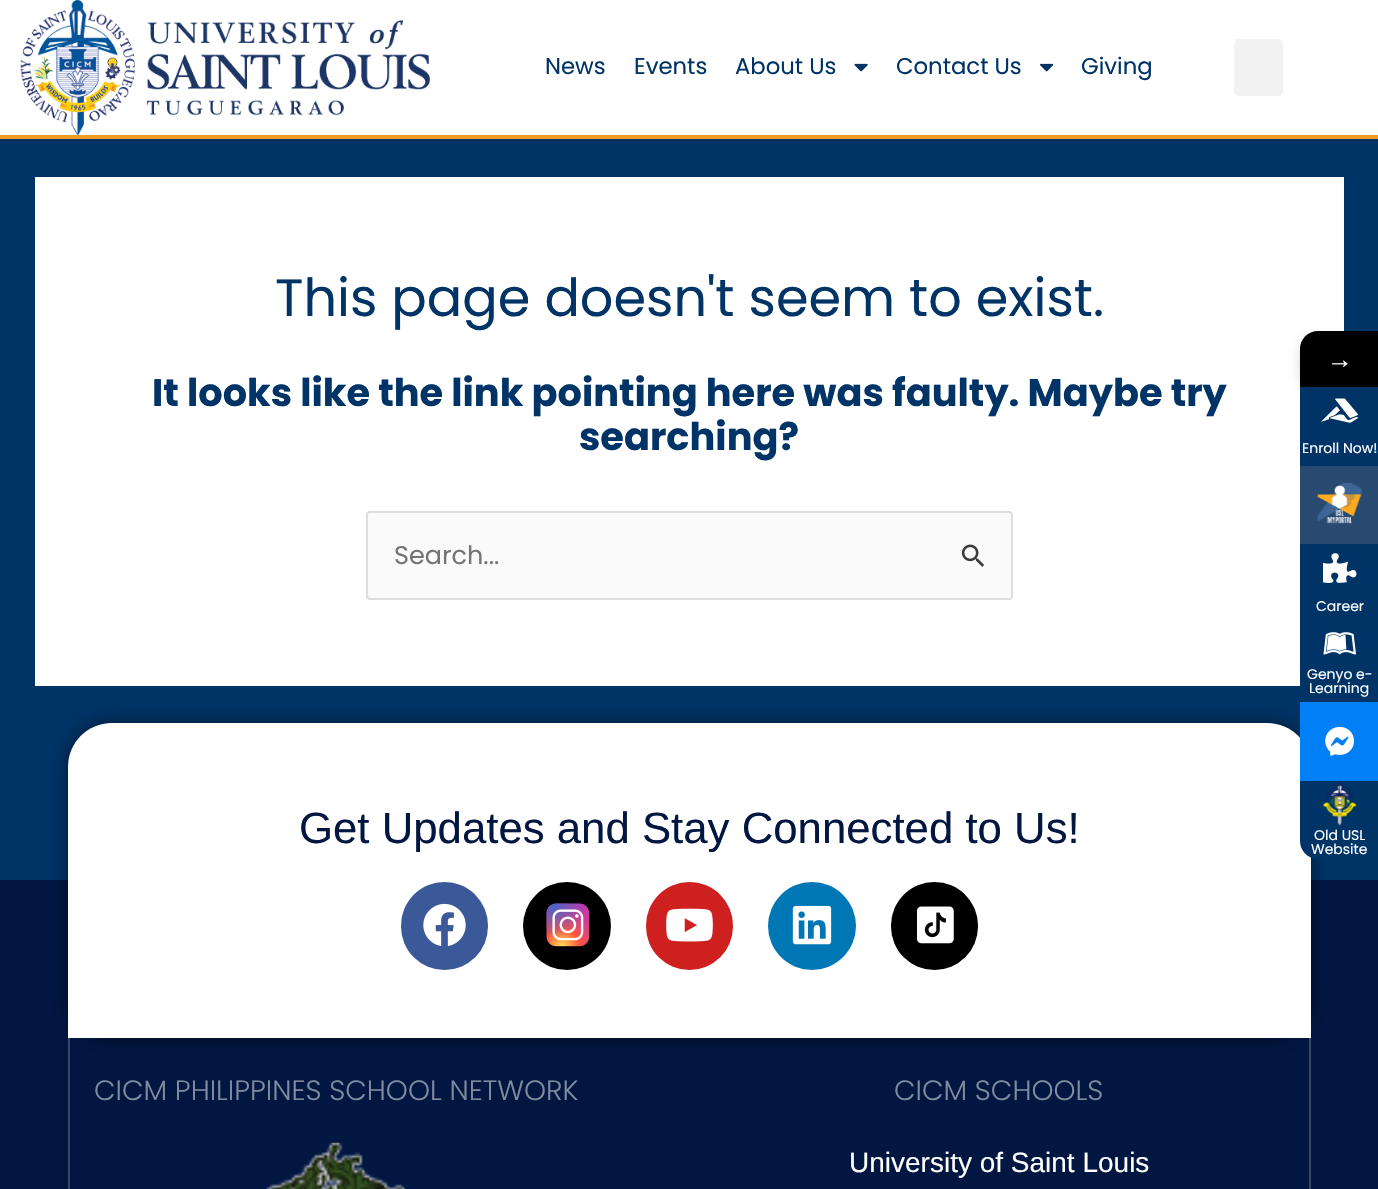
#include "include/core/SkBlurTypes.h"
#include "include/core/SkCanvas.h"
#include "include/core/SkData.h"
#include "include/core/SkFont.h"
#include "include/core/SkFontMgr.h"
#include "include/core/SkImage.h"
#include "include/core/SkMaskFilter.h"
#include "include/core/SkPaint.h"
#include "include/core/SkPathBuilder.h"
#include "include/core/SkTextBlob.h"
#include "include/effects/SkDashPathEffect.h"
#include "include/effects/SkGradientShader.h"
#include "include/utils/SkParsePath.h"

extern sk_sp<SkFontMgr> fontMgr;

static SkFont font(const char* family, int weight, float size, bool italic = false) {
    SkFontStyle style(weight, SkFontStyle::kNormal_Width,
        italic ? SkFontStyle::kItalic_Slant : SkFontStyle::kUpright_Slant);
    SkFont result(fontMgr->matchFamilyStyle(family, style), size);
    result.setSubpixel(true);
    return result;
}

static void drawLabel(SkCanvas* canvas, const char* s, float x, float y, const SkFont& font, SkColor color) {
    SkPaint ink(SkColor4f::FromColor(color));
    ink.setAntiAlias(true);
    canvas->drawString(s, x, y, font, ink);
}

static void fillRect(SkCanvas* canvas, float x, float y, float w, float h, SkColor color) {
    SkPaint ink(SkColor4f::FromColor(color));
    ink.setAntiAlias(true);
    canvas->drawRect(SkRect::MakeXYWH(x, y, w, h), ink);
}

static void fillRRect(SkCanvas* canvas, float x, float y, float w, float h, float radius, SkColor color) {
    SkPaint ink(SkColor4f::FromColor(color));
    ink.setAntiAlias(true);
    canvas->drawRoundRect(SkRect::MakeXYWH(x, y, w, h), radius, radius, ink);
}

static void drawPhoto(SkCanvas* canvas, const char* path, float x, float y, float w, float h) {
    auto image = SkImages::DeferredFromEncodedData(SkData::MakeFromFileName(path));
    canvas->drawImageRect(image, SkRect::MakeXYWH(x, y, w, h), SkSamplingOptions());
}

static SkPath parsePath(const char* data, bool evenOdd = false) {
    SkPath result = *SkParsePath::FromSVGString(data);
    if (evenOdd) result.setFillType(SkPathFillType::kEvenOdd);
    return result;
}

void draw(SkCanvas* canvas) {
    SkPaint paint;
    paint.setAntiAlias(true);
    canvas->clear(0xFF003366);
    fillRect(canvas, 0, 0, 1378, 135, 0xFFFFFFFF);
    drawPhoto(canvas, "assets/img1.png", 20, 0, 410, 135);
    SkFont font1 = font("Poppins", 400, 22.75f);
    drawLabel(canvas, "News", 545, 74, font1, 0xFF003366);
    drawLabel(canvas, "Events", 634, 74, font1, 0xFF003366);
    drawLabel(canvas, "About Us", 735, 74, font1, 0xFF003366);
    drawPhoto(canvas, "assets/img2.png", 854, 63, 14, 9);
    drawLabel(canvas, "Contact Us", 896, 74, font1, 0xFF003366);
    drawPhoto(canvas, "assets/img3.png", 1040, 63, 14, 9);
    drawLabel(canvas, "Giving", 1081, 74, font1, 0xFF003366);
    fillRRect(canvas, 1234, 39, 49, 57, 5, 0xFFF2F2F2);
    fillRect(canvas, 0, 135, 1378, 4, 0xFFEF9D23);
    fillRect(canvas, 35, 177, 1309, 509, 0xFFFFFFFF);
    SkFont font2 = font("Poppins", 400, 52.5f);
    drawLabel(canvas, "This page doesn't seem to exist.", 275, 316, font2, 0xFF003366);
    SkFont font3 = font("Poppins", 700, 38.3f);
    drawLabel(canvas, "It looks like the link pointing here was faulty. Maybe try", 152, 406, font3, 0xFF003366);
    drawLabel(canvas, "searching?", 579, 450, font3, 0xFF003366);
    paint.setColor(0xFFFAFAFA);
    canvas->drawRoundRect(SkRect::MakeXYWH(367, 512, 645, 87), 3, 3, paint);
    paint.setStroke(true);
    paint.setStrokeWidth(2);
    paint.setColor(0xFFDDDDDD);
    canvas->drawRoundRect(SkRect::MakeXYWH(367, 512, 645, 87), 3, 3, paint);
    SkFont font4 = font("Poppins", 400, 25.5f);
    drawLabel(canvas, "Search...", 394, 564, font4, 0xFF757575);
    drawPhoto(canvas, "assets/img4.png", 961, 544, 23, 23);
    fillRect(canvas, 0, 880, 1378, 309, 0xFF011640);
    fillRect(canvas, 1309, 1038, 2, 151, 0xFF394867);
    fillRect(canvas, 68, 1038, 2, 151, 0xFF394867);
    paint.setStroke(false);
    paint.setColor(0x80000000);
    paint.setMaskFilter(SkMaskFilter::MakeBlur(kNormal_SkBlurStyle, 9));
    canvas->drawRoundRect(SkRect::MakeXYWH(68, 723, 1243, 315), 44, 44, paint);
    paint.setMaskFilter(nullptr);
    paint.setColor(0xFFFFFFFF);
    canvas->drawPath(parsePath("M112 723H1267C1291.5 723 1311 742.5 1311 767V1038H68V767C68 742.5 87.5 723 112 723Z"), paint);
    SkFont font5 = font("Liberation Sans", 400, 43.75f);
    drawLabel(canvas, "Get Updates and Stay Connected to Us!", 299, 843, font5, 0xFF011640);
    fillRRect(canvas, 401, 882, 87, 88, 43.5f, 0xFF3B5998);
    drawPhoto(canvas, "assets/img5.png", 423, 903, 43, 43);
    paint.setColor(0xFF000000);
    canvas->drawCircle(567, 926, 44, paint);
    drawPhoto(canvas, "assets/img6.png", 546, 903, 44, 44);
    fillRRect(canvas, 646, 882, 87, 88, 43.5f, 0xFFCD201F);
    drawPhoto(canvas, "assets/img7.png", 666, 908, 47, 34);
    paint.setColor(0xFF0077B5);
    canvas->drawCircle(812, 926, 44, paint);
    drawPhoto(canvas, "assets/img8.png", 792, 905, 40, 40);
    fillRRect(canvas, 891, 882, 87, 88, 43.5f, 0xFF000000);
    drawPhoto(canvas, "assets/img9.png", 917, 906, 37, 38);
    SkFont font6 = font("Poppins", 300, 28);
    drawLabel(canvas, "CICM PHILIPPINES SCHOOL NETWORK", 94, 1100, font6, 0xFF808BA0);
    drawPhoto(canvas, "assets/img10.png", 266, 1142, 140, 47);
    drawLabel(canvas, "CICM SCHOOLS", 894, 1100, font6, 0xFF808BA0);
    SkFont font7 = font("Liberation Sans", 400, 28);
    drawLabel(canvas, "University of Saint Louis", 849, 1172, font7, 0xFFFFFFFF);
    paint.setColor(0x29000000);
    paint.setMaskFilter(SkMaskFilter::MakeBlur(kNormal_SkBlurStyle, 5));
    canvas->drawRoundRect(SkRect::MakeXYWH(1300, 336, 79, 56), 18, 18, paint);
    paint.setMaskFilter(nullptr);
    paint.setColor(0xFF000000);
    canvas->drawPath(parsePath("M1318 331H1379V387H1300V349C1300 339 1308 331 1318 331Z"), paint);
    SkFont font8 = font("Liberation Serif", 400, 25.5f);
    drawLabel(canvas, "→", 1327, 368, font8, 0xFFFFFFFF);
    fillRect(canvas, 1300, 387, 78, 79, 0xFF003366);
    drawPhoto(canvas, "assets/img11.png", 1321, 398, 38, 25);
    SkFont font9 = font("Poppins", 400, 14);
    drawLabel(canvas, "Enroll Now!", 1302, 453, font9, 0xFFFFFFFF);
    fillRect(canvas, 1300, 466, 78, 78, 0xFF294A70);
    drawPhoto(canvas, "assets/img12.png", 1317, 483, 45, 41);
    fillRect(canvas, 1300, 544, 44, 142, 0xFF003366);
    drawPhoto(canvas, "assets/img13.png", 1323, 553, 34, 30);
    drawLabel(canvas, "Career", 1316, 611, font9, 0xFFFFFFFF);
    drawPhoto(canvas, "assets/img14.png", 1323, 632, 33, 23);
    drawLabel(canvas, "Genyo e-", 1307, 679, font9, 0xFFFFFFFF);
    drawLabel(canvas, "Learning", 1309, 693, font9, 0xFFFFFFFF);
    fillRect(canvas, 1300, 702, 78, 79, 0xFF007FF7);
    drawPhoto(canvas, "assets/img15.png", 1325, 726, 29, 30);
    paint.setColor(0xFF003366);
    canvas->drawPath(parsePath("M1300 781H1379V859H1318C1308 859 1300 851 1300 841Z"), paint);
    drawPhoto(canvas, "assets/img16.png", 1322, 782, 35, 44);
    drawLabel(canvas, "Old USL", 1314, 840, font9, 0xFFFFFFFF);
    drawLabel(canvas, "Website", 1311, 854, font9, 0xFFFFFFFF);
}
